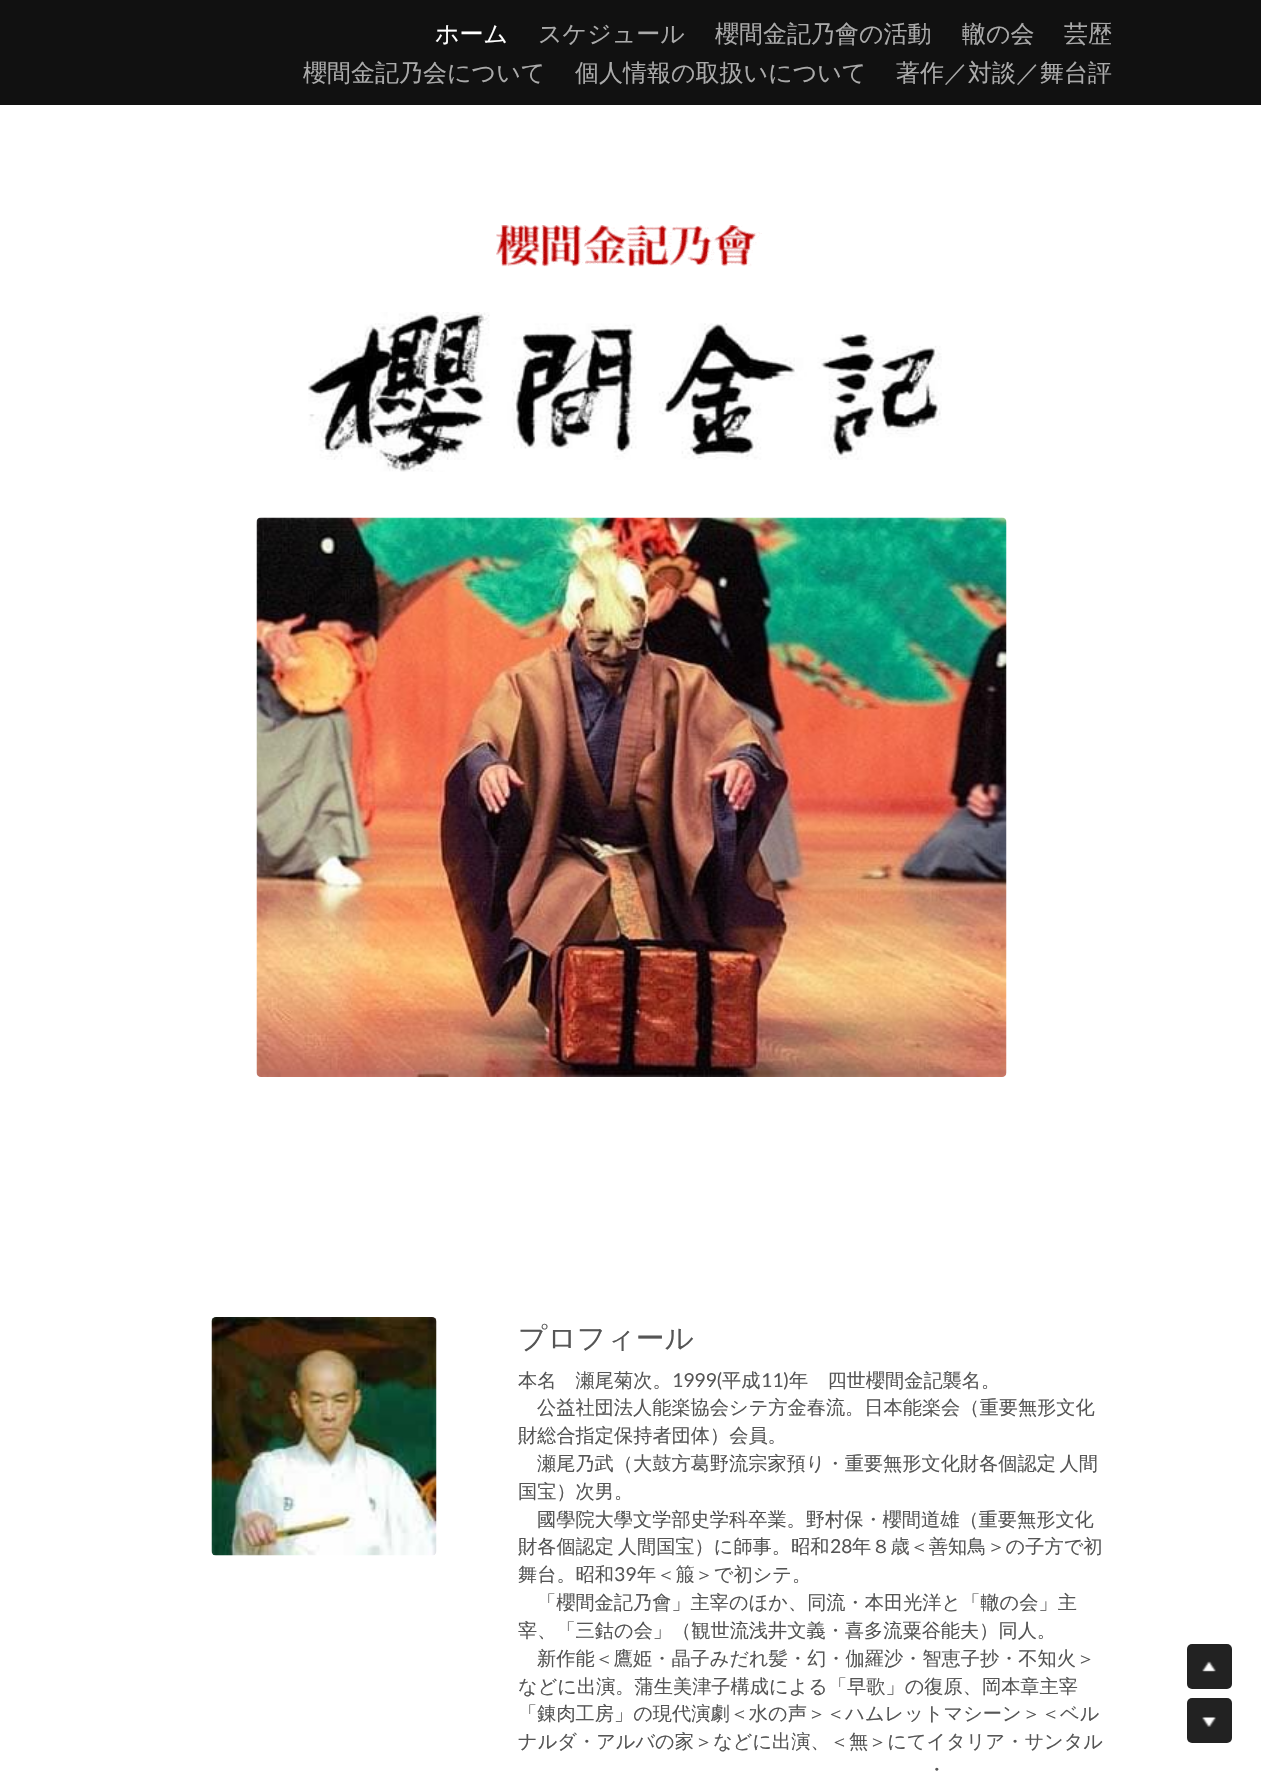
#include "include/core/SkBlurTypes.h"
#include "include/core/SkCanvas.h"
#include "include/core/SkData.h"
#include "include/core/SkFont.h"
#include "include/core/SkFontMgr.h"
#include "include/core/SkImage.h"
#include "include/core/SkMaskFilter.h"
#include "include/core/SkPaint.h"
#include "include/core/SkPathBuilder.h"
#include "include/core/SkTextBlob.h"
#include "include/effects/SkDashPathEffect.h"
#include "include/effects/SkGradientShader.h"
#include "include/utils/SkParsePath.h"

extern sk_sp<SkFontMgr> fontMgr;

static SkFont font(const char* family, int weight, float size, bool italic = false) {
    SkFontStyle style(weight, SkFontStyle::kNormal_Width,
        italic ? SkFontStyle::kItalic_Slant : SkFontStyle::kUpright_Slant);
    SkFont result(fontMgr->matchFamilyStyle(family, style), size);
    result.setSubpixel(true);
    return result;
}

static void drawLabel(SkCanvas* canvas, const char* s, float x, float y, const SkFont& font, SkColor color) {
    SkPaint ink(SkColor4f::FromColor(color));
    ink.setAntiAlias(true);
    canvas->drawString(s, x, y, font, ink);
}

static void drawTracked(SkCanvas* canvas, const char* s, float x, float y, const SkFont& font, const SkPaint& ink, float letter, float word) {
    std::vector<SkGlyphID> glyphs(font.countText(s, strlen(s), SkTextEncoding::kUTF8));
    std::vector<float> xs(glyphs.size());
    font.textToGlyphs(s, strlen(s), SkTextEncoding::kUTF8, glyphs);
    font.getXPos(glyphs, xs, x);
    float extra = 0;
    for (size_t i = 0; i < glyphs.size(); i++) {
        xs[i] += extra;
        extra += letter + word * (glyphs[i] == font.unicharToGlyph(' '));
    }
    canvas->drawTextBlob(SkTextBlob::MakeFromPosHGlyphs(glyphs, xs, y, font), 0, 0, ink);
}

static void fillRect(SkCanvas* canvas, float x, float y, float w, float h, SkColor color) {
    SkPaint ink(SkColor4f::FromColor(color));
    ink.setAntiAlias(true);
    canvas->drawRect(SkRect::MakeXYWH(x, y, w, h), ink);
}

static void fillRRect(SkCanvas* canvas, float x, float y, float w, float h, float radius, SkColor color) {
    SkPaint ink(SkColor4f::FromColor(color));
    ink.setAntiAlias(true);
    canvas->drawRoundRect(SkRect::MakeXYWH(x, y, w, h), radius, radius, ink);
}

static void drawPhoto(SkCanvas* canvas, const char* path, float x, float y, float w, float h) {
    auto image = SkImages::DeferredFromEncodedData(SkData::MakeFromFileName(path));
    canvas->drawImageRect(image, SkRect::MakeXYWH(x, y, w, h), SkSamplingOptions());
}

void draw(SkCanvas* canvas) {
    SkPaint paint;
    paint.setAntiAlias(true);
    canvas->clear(0xFFFFFFFF);
    fillRect(canvas, 0, 0, 1261, 105, 0xFF111111);
    SkFont font1 = font("WenQuanYi Zen Hei", 500, 24);
    drawLabel(canvas, "ホーム", 435, 42, font1, 0xFFFFFFFF);
    drawLabel(canvas, "スケジュール", 538, 42, font1, 0xFFAAAAAA);
    drawLabel(canvas, "櫻間金記乃會の活動", 715, 42, font1, 0xFFAAAAAA);
    drawLabel(canvas, "轍の会", 962, 42, font1, 0xFFAAAAAA);
    drawLabel(canvas, "芸歴", 1064, 42, font1, 0xFFAAAAAA);
    drawLabel(canvas, "櫻間金記乃会について", 303, 81, font1, 0xFFAAAAAA);
    drawLabel(canvas, "個人情報の取扱いについて", 575, 81, font1, 0xFFAAAAAA);
    drawLabel(canvas, "著作／対談／舞台評", 896, 81, font1, 0xFFAAAAAA);
    drawPhoto(canvas, "assets/img1.png", 496, 225, 266, 42);
    drawPhoto(canvas, "assets/img2.png", 308, 312, 634, 160);
    drawPhoto(canvas, "assets/img3.png", 256, 517, 751, 560);
    drawPhoto(canvas, "assets/img4.png", 211, 1317, 226, 239);
    SkFont font2 = font("WenQuanYi Zen Hei", 500, 28.75f);
    drawLabel(canvas, "プロフィール", 518, 1348, font2, 0xFF555555);
    SkFont font3 = font("WenQuanYi Zen Hei", 500, 19.2f);
    drawLabel(canvas, "本名　瀬尾菊次。", 518, 1387, font3, 0xFF555555);
    SkFont font4 = font("Lato", 400, 19.2f);
    drawLabel(canvas, "1999(", 672, 1387, font4, 0xFF555555);
    drawLabel(canvas, "平成", 722, 1387, font3, 0xFF555555);
    drawLabel(canvas, "11)", 761, 1387, font4, 0xFF555555);
    drawLabel(canvas, "年　四世櫻間金記襲名。", 789, 1387, font3, 0xFF555555);
    drawLabel(canvas, "公益社団法人能楽協会シテ方金春流。日本能楽会（重要無形文化", 537, 1414, font3, 0xFF555555);
    drawLabel(canvas, "財総合指定保持者団体）会員。", 518, 1442, font3, 0xFF555555);
    paint.setColor(0xFF555555);
    drawTracked(canvas, "瀬尾乃武（大鼓方葛野流宗家預り・重要無形文化財各個認定 人間", 537, 1470, font3, paint, 0, -2);
    drawLabel(canvas, "国宝）次男。", 518, 1498, font3, 0xFF555555);
    drawLabel(canvas, "國學院大學文学部史学科卒業。野村保・櫻間道雄（重要無形文化", 537, 1526, font3, 0xFF555555);
    drawTracked(canvas, "財各個認定 人間国宝）に師事。昭和", 518, 1553, font3, paint, 0, -2);
    drawLabel(canvas, "28", 830, 1553, font4, 0xFF555555);
    drawLabel(canvas, "年８歳＜善知鳥＞の子方で初", 852, 1553, font3, 0xFF555555);
    drawLabel(canvas, "舞台。昭和", 518, 1581, font3, 0xFF555555);
    drawLabel(canvas, "39", 614, 1581, font4, 0xFF555555);
    drawLabel(canvas, "年＜箙＞で初シテ。", 637, 1581, font3, 0xFF555555);
    drawLabel(canvas, "「櫻間金記乃會」主宰のほか、同流・本田光洋と「轍の会」主", 537, 1609, font3, 0xFF555555);
    drawLabel(canvas, "宰、「三鈷の会」（観世流浅井文義・喜多流粟谷能夫）同人。", 518, 1637, font3, 0xFF555555);
    drawLabel(canvas, "新作能＜鷹姫・晶子みだれ髪・幻・伽羅沙・智恵子抄・不知火＞", 537, 1665, font3, 0xFF555555);
    drawLabel(canvas, "などに出演。蒲生美津子構成による「早歌」の復原、岡本章主宰", 518, 1693, font3, 0xFF555555);
    drawLabel(canvas, "「錬肉工房」の現代演劇＜水の声＞＜ハムレットマシーン＞＜ベル", 518, 1720, font3, 0xFF555555);
    drawLabel(canvas, "ナルダ・アルバの家＞などに出演、＜無＞にてイタリア・サンタル", 518, 1748, font3, 0xFF555555);
    drawLabel(canvas, "・", 927, 1776, font3, 0xFF555555);
    fillRRect(canvas, 1187, 1644, 45, 45, 5, 0xFF222222);
    drawPhoto(canvas, "assets/img5.png", 1202, 1661, 14, 11);
    fillRRect(canvas, 1187, 1698, 45, 45, 5, 0xFF222222);
    drawPhoto(canvas, "assets/img6.png", 1202, 1717, 14, 10);
}
